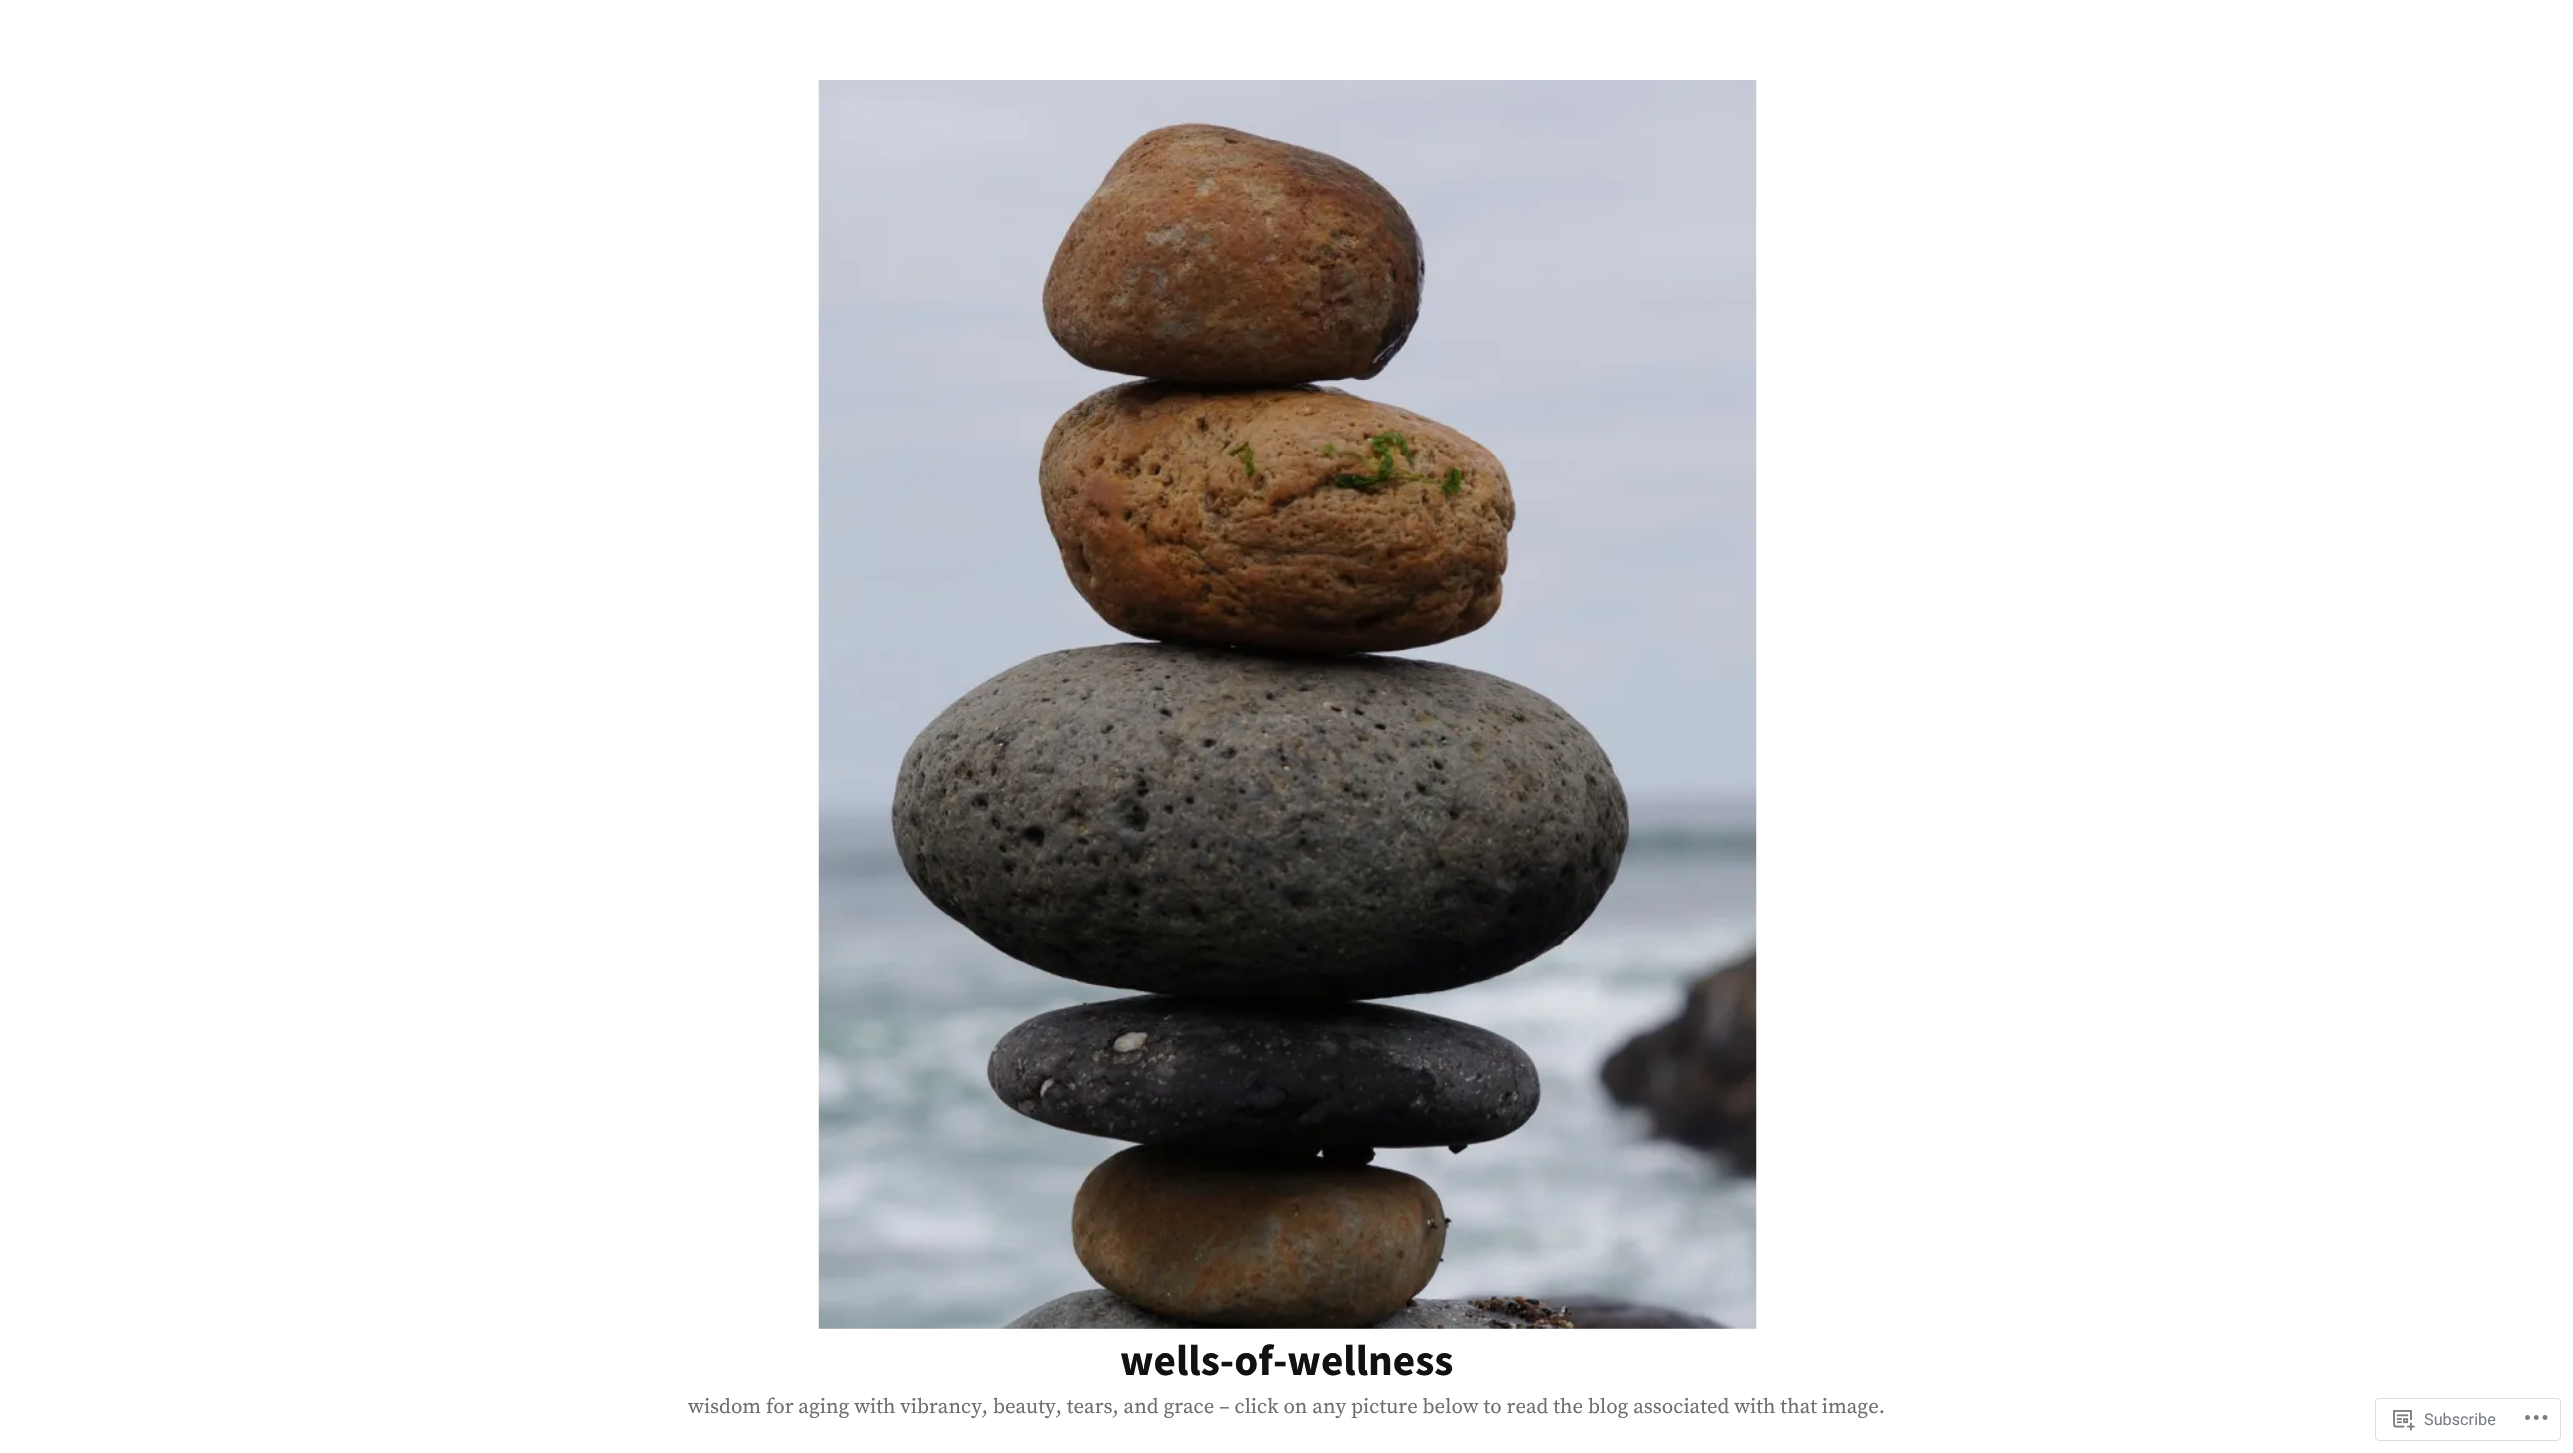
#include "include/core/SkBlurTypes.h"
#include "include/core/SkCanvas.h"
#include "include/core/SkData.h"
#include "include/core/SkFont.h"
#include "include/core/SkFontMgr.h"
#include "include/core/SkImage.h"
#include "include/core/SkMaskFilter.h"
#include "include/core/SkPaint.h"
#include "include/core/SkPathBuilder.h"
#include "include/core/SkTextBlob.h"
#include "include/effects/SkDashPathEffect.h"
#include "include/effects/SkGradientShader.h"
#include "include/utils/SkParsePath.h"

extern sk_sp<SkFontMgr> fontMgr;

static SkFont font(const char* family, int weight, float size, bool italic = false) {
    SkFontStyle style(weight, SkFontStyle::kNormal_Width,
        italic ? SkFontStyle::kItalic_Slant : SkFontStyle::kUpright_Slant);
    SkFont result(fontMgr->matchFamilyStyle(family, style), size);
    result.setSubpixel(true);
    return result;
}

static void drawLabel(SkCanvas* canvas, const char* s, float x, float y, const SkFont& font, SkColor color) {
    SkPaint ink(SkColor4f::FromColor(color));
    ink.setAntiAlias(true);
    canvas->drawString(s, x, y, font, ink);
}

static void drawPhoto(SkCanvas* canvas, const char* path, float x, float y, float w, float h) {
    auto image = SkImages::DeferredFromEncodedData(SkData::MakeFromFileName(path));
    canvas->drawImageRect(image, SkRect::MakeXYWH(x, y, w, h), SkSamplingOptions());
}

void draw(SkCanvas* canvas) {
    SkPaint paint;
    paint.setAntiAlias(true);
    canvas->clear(0xFFFFFFFF);
    drawPhoto(canvas, "assets/img1.png", 818, 80, 939, 1249);
    SkFont font1 = font("Source Sans Pro", 700, 43.25f);
    drawLabel(canvas, "wells-of-wellness", 1120, 1375, font1, 0xFF111111);
    SkFont font2 = font("Source Serif Pro", 400, 20.8f);
    drawLabel(canvas, "wisdom for aging with vibrancy, beauty, tears, and grace", 688, 1413, font2, 0xFF6E6E6E);
    drawLabel(canvas, "– click on any picture below to read the blog associated with that image.", 1219, 1413, font2, 0xFF6E6E6E);
    paint.setStroke(true);
    paint.setStrokeWidth(1);
    paint.setColor(0xFFDDDDDF);
    canvas->drawRoundRect(SkRect::MakeXYWH(2375.5f, 1398.5f, 185, 42), 3.5f, 3.5f, paint);
    drawPhoto(canvas, "assets/img2.png", 2393, 1410, 22, 21);
    SkFont font3 = font("Roboto", 400, 16.25f);
    drawLabel(canvas, "Subscribe", 2424, 1425, font3, 0xFF7B7F85);
    drawPhoto(canvas, "assets/img3.png", 2525, 1415, 23, 5);
}
